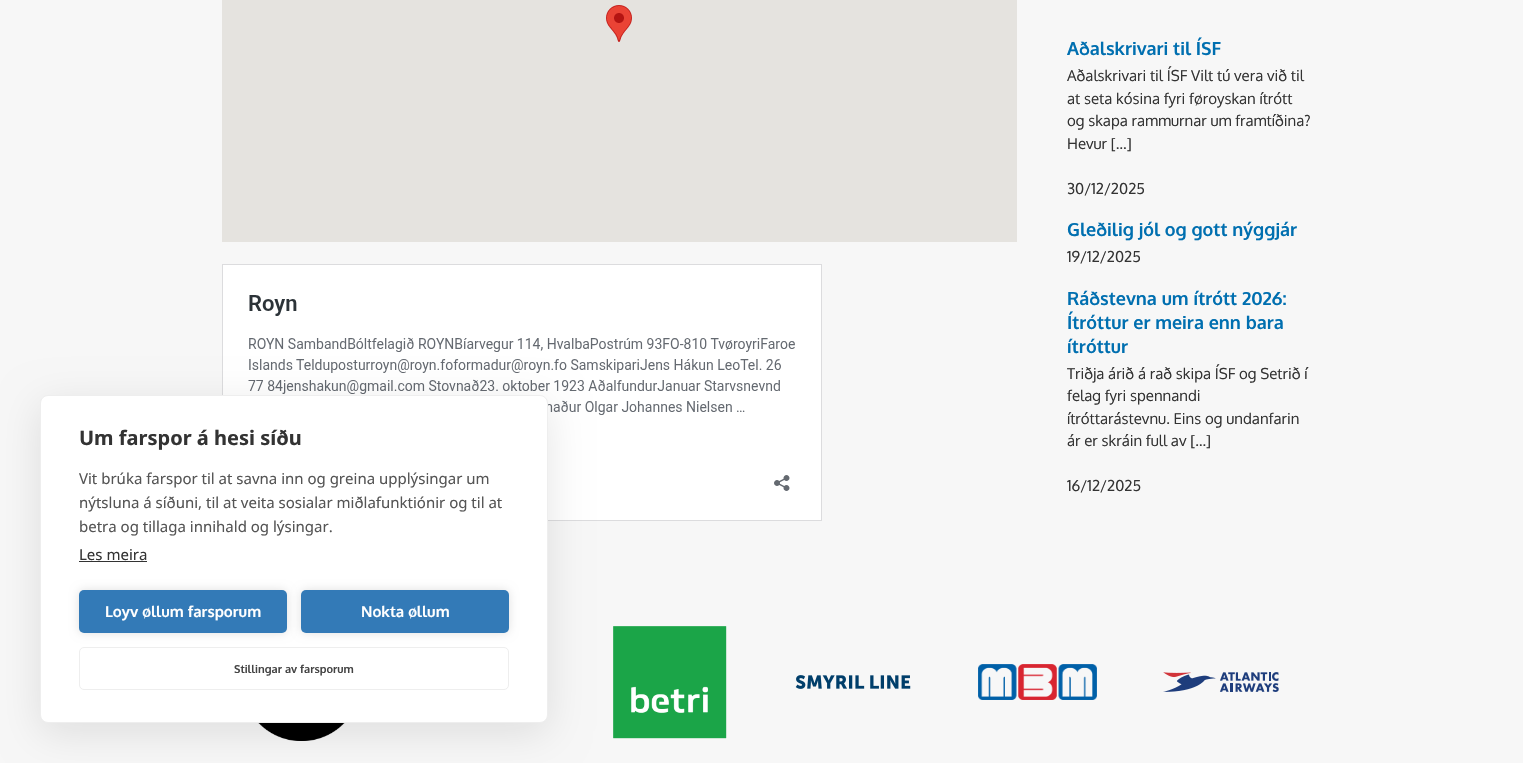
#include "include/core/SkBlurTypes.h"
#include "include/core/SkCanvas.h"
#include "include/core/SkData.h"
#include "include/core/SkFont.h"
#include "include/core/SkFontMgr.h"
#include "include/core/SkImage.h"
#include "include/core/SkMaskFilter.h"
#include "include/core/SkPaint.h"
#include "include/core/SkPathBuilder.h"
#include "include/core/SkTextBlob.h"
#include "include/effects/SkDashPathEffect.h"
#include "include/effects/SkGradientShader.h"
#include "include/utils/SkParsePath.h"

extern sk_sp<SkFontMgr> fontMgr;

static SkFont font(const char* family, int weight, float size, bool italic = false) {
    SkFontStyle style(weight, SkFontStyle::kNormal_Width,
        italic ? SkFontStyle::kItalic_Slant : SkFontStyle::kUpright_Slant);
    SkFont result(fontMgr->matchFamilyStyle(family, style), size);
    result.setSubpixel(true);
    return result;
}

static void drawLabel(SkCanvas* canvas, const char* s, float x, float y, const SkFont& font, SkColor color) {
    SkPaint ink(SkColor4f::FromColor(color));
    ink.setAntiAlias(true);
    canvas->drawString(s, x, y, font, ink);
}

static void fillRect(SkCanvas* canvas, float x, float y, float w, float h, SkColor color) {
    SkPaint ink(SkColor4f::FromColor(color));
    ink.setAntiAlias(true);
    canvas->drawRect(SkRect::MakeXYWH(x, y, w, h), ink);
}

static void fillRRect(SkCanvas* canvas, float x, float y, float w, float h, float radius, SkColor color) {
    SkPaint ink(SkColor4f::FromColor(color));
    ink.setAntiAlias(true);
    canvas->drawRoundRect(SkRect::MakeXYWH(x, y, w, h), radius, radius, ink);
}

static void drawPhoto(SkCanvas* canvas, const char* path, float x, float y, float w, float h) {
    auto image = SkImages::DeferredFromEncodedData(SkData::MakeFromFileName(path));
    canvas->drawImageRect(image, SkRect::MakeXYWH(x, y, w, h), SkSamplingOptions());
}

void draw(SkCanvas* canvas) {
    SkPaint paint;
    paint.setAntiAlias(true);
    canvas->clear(0xFFF7F7F7);
    fillRect(canvas, 222, 0, 795, 242, 0xFFE5E3DF);
    drawPhoto(canvas, "assets/img1.png", 606, 5, 26, 37);
    drawPhoto(canvas, "assets/img2.png", 222, 264, 600, 257);
    SkFont font1 = font("Oxygen", 700, 18);
    drawLabel(canvas, "Aðalskrivari til ÍSF", 1067, 55, font1, 0xFF006FB0);
    SkFont font2 = font("Oxygen", 400, 15);
    drawLabel(canvas, "Aðalskrivari til ÍSF Vilt tú vera við til", 1067, 81, font2, 0xFF333333);
    drawLabel(canvas, "at seta kósina fyri føroyskan ítrótt", 1067, 104, font2, 0xFF333333);
    drawLabel(canvas, "og skapa rammurnar um framtíðina?", 1067, 126, font2, 0xFF333333);
    drawLabel(canvas, "Hevur […]", 1067, 149, font2, 0xFF333333);
    drawLabel(canvas, "30/12/2025", 1067, 194, font2, 0xFF333333);
    drawLabel(canvas, "Gleðilig jól og gott nýggjár", 1067, 236, font1, 0xFF006FB0);
    drawLabel(canvas, "19/12/2025", 1067, 262, font2, 0xFF333333);
    drawLabel(canvas, "Ráðstevna um ítrótt 2026:", 1067, 305, font1, 0xFF006FB0);
    drawLabel(canvas, "Ítróttur er meira enn bara", 1067, 329, font1, 0xFF006FB0);
    drawLabel(canvas, "ítróttur", 1067, 353, font1, 0xFF006FB0);
    drawLabel(canvas, "Triðja árið á rað skipa ÍSF og Setrið í", 1067, 379, font2, 0xFF333333);
    drawLabel(canvas, "felag fyri spennandi", 1067, 401, font2, 0xFF333333);
    drawLabel(canvas, "ítróttarástevnu. Eins og undanfarin", 1067, 424, font2, 0xFF333333);
    drawLabel(canvas, "ár er skráin full av […]", 1067, 446, font2, 0xFF333333);
    drawLabel(canvas, "16/12/2025", 1067, 491, font2, 0xFF333333);
    drawPhoto(canvas, "assets/img3.png", 613, 626, 114, 113);
    drawPhoto(canvas, "assets/img4.png", 795, 675, 116, 14);
    drawPhoto(canvas, "assets/img5.png", 978, 664, 119, 36);
    drawPhoto(canvas, "assets/img6.png", 1163, 672, 116, 20);
    drawPhoto(canvas, "assets/img7.png", 258, 723, 87, 18);
    paint.setColor(0x1A000000);
    paint.setMaskFilter(SkMaskFilter::MakeBlur(kNormal_SkBlurStyle, 20));
    canvas->drawRoundRect(SkRect::MakeXYWH(40, 405, 508, 328), 8, 8, paint);
    paint.setMaskFilter(nullptr);
    paint.setColor(0xFFFFFFFF);
    canvas->drawRoundRect(SkRect::MakeXYWH(40.5f, 395.5f, 507, 327), 7.5f, 7.5f, paint);
    paint.setStroke(true);
    paint.setStrokeWidth(1);
    paint.setColor(0xFFEEEEEE);
    canvas->drawRoundRect(SkRect::MakeXYWH(40.5f, 395.5f, 507, 327), 7.5f, 7.5f, paint);
    SkFont font3 = font("Noto Sans", 700, 20);
    drawLabel(canvas, "Um farspor á hesi síðu", 79, 445, font3, 0xFF333333);
    SkFont font4 = font("Noto Sans", 400, 15);
    drawLabel(canvas, "Vit brúka farspor til at savna inn og greina upplýsingar um", 79, 484, font4, 0xFF555555);
    drawLabel(canvas, "nýtsluna á síðuni, til at veita sosialar miðlafunktiónir og til at", 79, 508, font4, 0xFF555555);
    drawLabel(canvas, "betra og tillaga innihald og lýsingar.", 79, 532, font4, 0xFF555555);
    drawLabel(canvas, "Les meira", 79, 560, font4, 0xFF333333);
    fillRect(canvas, 79, 561, 68, 1, 0xFF333333);
    paint.setStroke(false);
    paint.setColor(0x1F000000);
    paint.setMaskFilter(SkMaskFilter::MakeBlur(kNormal_SkBlurStyle, 5));
    canvas->drawRoundRect(SkRect::MakeXYWH(79, 590, 208, 43), 5, 5, paint);
    paint.setMaskFilter(nullptr);
    fillRRect(canvas, 79, 590, 208, 43, 5, 0xFF337AB7);
    SkFont font5 = font("Oxygen", 700, 15);
    drawLabel(canvas, "Loyv øllum farsporum", 105, 617, font5, 0xFFFFFFFF);
    paint.setMaskFilter(SkMaskFilter::MakeBlur(kNormal_SkBlurStyle, 5));
    canvas->drawRoundRect(SkRect::MakeXYWH(301, 590, 208, 43), 5, 5, paint);
    paint.setMaskFilter(nullptr);
    fillRRect(canvas, 301, 590, 208, 43, 5, 0xFF337AB7);
    drawLabel(canvas, "Nokta øllum", 361, 617, font5, 0xFFFFFFFF);
    paint.setStroke(true);
    paint.setColor(0xFFEEEEEE);
    canvas->drawRoundRect(SkRect::MakeXYWH(79.5f, 647.5f, 429, 42), 4.5f, 4.5f, paint);
    SkFont font6 = font("Oxygen", 700, 11);
    drawLabel(canvas, "Stillingar av farsporum", 234, 673, font6, 0xFF444444);
}
